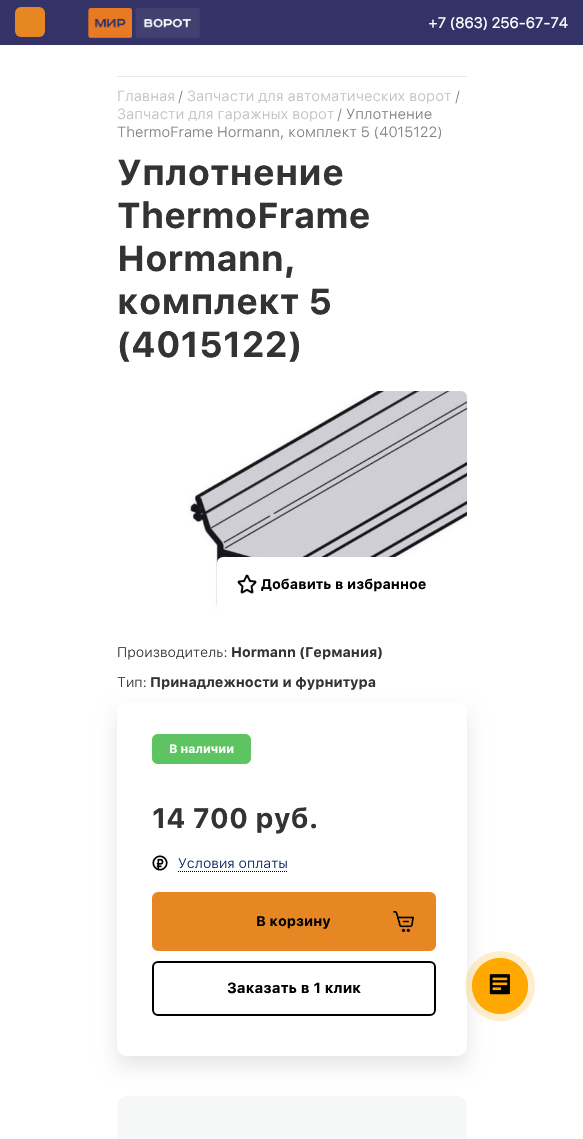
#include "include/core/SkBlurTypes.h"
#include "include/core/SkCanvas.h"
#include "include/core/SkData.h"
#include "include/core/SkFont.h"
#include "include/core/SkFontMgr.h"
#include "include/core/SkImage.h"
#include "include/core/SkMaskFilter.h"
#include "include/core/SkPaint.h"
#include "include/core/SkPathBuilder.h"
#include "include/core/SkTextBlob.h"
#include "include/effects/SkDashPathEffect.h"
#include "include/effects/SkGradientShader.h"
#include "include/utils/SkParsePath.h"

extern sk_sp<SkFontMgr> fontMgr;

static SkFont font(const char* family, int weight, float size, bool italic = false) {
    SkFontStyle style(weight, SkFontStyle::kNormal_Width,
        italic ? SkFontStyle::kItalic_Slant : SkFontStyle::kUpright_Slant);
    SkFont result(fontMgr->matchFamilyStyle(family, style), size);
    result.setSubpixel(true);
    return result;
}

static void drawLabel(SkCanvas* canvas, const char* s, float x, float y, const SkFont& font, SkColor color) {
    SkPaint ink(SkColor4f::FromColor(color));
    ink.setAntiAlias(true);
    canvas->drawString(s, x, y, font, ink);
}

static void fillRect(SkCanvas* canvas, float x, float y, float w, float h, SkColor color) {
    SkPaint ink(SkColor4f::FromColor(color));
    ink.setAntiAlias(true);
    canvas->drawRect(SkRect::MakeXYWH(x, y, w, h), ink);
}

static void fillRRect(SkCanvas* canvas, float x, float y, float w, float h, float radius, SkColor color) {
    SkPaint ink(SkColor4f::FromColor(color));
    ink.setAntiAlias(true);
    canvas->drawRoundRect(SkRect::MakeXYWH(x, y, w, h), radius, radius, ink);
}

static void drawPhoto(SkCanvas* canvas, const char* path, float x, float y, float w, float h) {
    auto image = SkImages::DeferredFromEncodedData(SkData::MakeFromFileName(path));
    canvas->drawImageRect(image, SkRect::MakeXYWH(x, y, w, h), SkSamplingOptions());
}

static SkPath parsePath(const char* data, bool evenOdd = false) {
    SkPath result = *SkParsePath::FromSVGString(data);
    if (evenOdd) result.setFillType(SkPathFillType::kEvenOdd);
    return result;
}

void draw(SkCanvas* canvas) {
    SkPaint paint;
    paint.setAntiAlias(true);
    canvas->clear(0xFFFFFFFF);
    fillRect(canvas, 0, 0, 583, 45, 0xFF333367);
    fillRRect(canvas, 15, 7, 30, 30, 6, 0xFFE68723);
    drawPhoto(canvas, "assets/img1.png", 88, 8, 112, 30);
    SkFont font1 = font("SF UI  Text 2", 700, 14.7f);
    drawLabel(canvas, "+7 (863) 256-67-74", 428, 28, font1, 0xFFFFFFFF);
    fillRect(canvas, 117, 76, 350, 1, 0xFFE9E9E9);
    SkFont font2 = font("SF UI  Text", 300, 14.7f);
    drawLabel(canvas, "Главная", 117, 101, font2, 0xFFBFBFBF);
    drawLabel(canvas, "/", 178, 101, font2, 0xFF808080);
    drawLabel(canvas, "Запчасти для автоматических ворот", 187, 101, font2, 0xFFBFBFBF);
    drawLabel(canvas, "/", 455, 101, font2, 0xFF808080);
    drawLabel(canvas, "Запчасти для гаражных ворот", 117, 119, font2, 0xFFBFBFBF);
    drawLabel(canvas, "/ Уплотнение", 337, 119, font2, 0xFF808080);
    drawLabel(canvas, "ThermoFrame Hormann, комплект 5 (4015122)", 117, 137, font2, 0xFF808080);
    SkFont font3 = font("SF UI  Text", 700, 36);
    drawLabel(canvas, "Уплотнение", 117, 185, font3, 0xFF333333);
    drawLabel(canvas, "ThermoFrame", 117, 228, font3, 0xFF333333);
    drawLabel(canvas, "Hormann,", 117, 271, font3, 0xFF333333);
    drawLabel(canvas, "комплект 5", 117, 314, font3, 0xFF333333);
    drawLabel(canvas, "(4015122)", 117, 357, font3, 0xFF333333);
    drawPhoto(canvas, "assets/img2.png", 187, 391, 280, 221);
    fillRRect(canvas, 217, 557, 230, 55, 6, 0xFFFFFFFF);
    drawPhoto(canvas, "assets/img3.png", 237, 574, 20, 20);
    SkFont font4 = font("SF UI  Text", 700, 14);
    drawLabel(canvas, "Добавить в избранное", 261, 589, font4, 0xFF000000);
    SkFont font5 = font("SF UI  Text", 300, 14);
    drawLabel(canvas, "Производитель:", 117, 657, font5, 0xFF333333);
    drawLabel(canvas, "Hormann (Германия)", 231, 657, font4, 0xFF333333);
    drawLabel(canvas, "Тип:", 117, 687, font5, 0xFF333333);
    drawLabel(canvas, "Принадлежности и фурнитура", 150, 687, font4, 0xFF333333);
    fillRRect(canvas, 117, 1096, 350, 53, 10, 0xFFF6F8F7);
    canvas->save();
    canvas->clipPath(parsePath("M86 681H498V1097H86ZM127 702H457C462.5 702 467 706.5 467 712V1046C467 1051.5 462.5 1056 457 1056H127C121.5 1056 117 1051.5 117 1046V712C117 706.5 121.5 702 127 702Z", true), true);
    paint.setColor(0x1A000000);
    paint.setMaskFilter(SkMaskFilter::MakeBlur(kNormal_SkBlurStyle, 10));
    canvas->drawRoundRect(SkRect::MakeXYWH(117, 712, 350, 354), 10, 10, paint);
    paint.setMaskFilter(nullptr);
    canvas->restore();
    paint.setColor(0xFF5EC462);
    canvas->drawPath(parsePath("M169 734H245C248.5 734 251 736.5 251 740V758C251 761.5 248.5 764 245 764H169Z"), paint);
    SkFont font6 = font("SF UI  Text", 700, 12);
    drawLabel(canvas, "В наличии", 169, 753, font6, 0xFFFFFFFF);
    canvas->drawPath(parsePath("M158 734H169V764H158C154.5 764 152 761.5 152 758V740C152 736.5 154.5 734 158 734Z"), paint);
    SkFont font7 = font("SF UI  Text", 700, 28);
    drawLabel(canvas, "14 700 руб.", 152, 828, font7, 0xFF333333);
    drawPhoto(canvas, "assets/img4.png", 152, 855, 16, 16);
    paint.setStroke(true);
    paint.setStrokeWidth(1);
    paint.setColor(0xFF000000);
    paint.setPathEffect(SkDashPathEffect::Make({{1, 1}}, 0));
    canvas->drawPath(parsePath("M178 871.5H287"), paint);
    paint.setPathEffect(nullptr);
    drawLabel(canvas, "Условия оплаты", 178, 868, font5, 0xFF01205F);
    paint.setStroke(false);
    paint.setColor(0xFFE68723);
    canvas->drawRoundRect(SkRect::MakeXYWH(153, 893, 282, 57), 5, 5, paint);
    paint.setStroke(true);
    paint.setStrokeWidth(2);
    canvas->drawRoundRect(SkRect::MakeXYWH(153, 893, 282, 57), 5, 5, paint);
    drawLabel(canvas, "В корзину", 256, 926, font4, 0xFF000000);
    drawPhoto(canvas, "assets/img5.png", 393, 911, 21, 21);
    paint.setColor(0xFF000000);
    canvas->drawRoundRect(SkRect::MakeXYWH(153, 962, 282, 53), 5, 5, paint);
    SkFont font8 = font("SF UI  Text", 700, 14.7f);
    drawLabel(canvas, "Заказать в 1 клик", 227, 993, font8, 0xFF000000);
    paint.setStroke(false);
    paint.setColor(0x33FFA801);
    canvas->drawCircle(500, 986, 35, paint);
    paint.setStroke(true);
    paint.setStrokeWidth(0.8f);
    paint.setColor(0xFFFFA801);
    canvas->drawCircle(500, 986, 27.6f, paint);
    paint.setStroke(false);
    canvas->drawCircle(500, 986, 28, paint);
    drawPhoto(canvas, "assets/img6.png", 489, 974, 21, 21);
}
